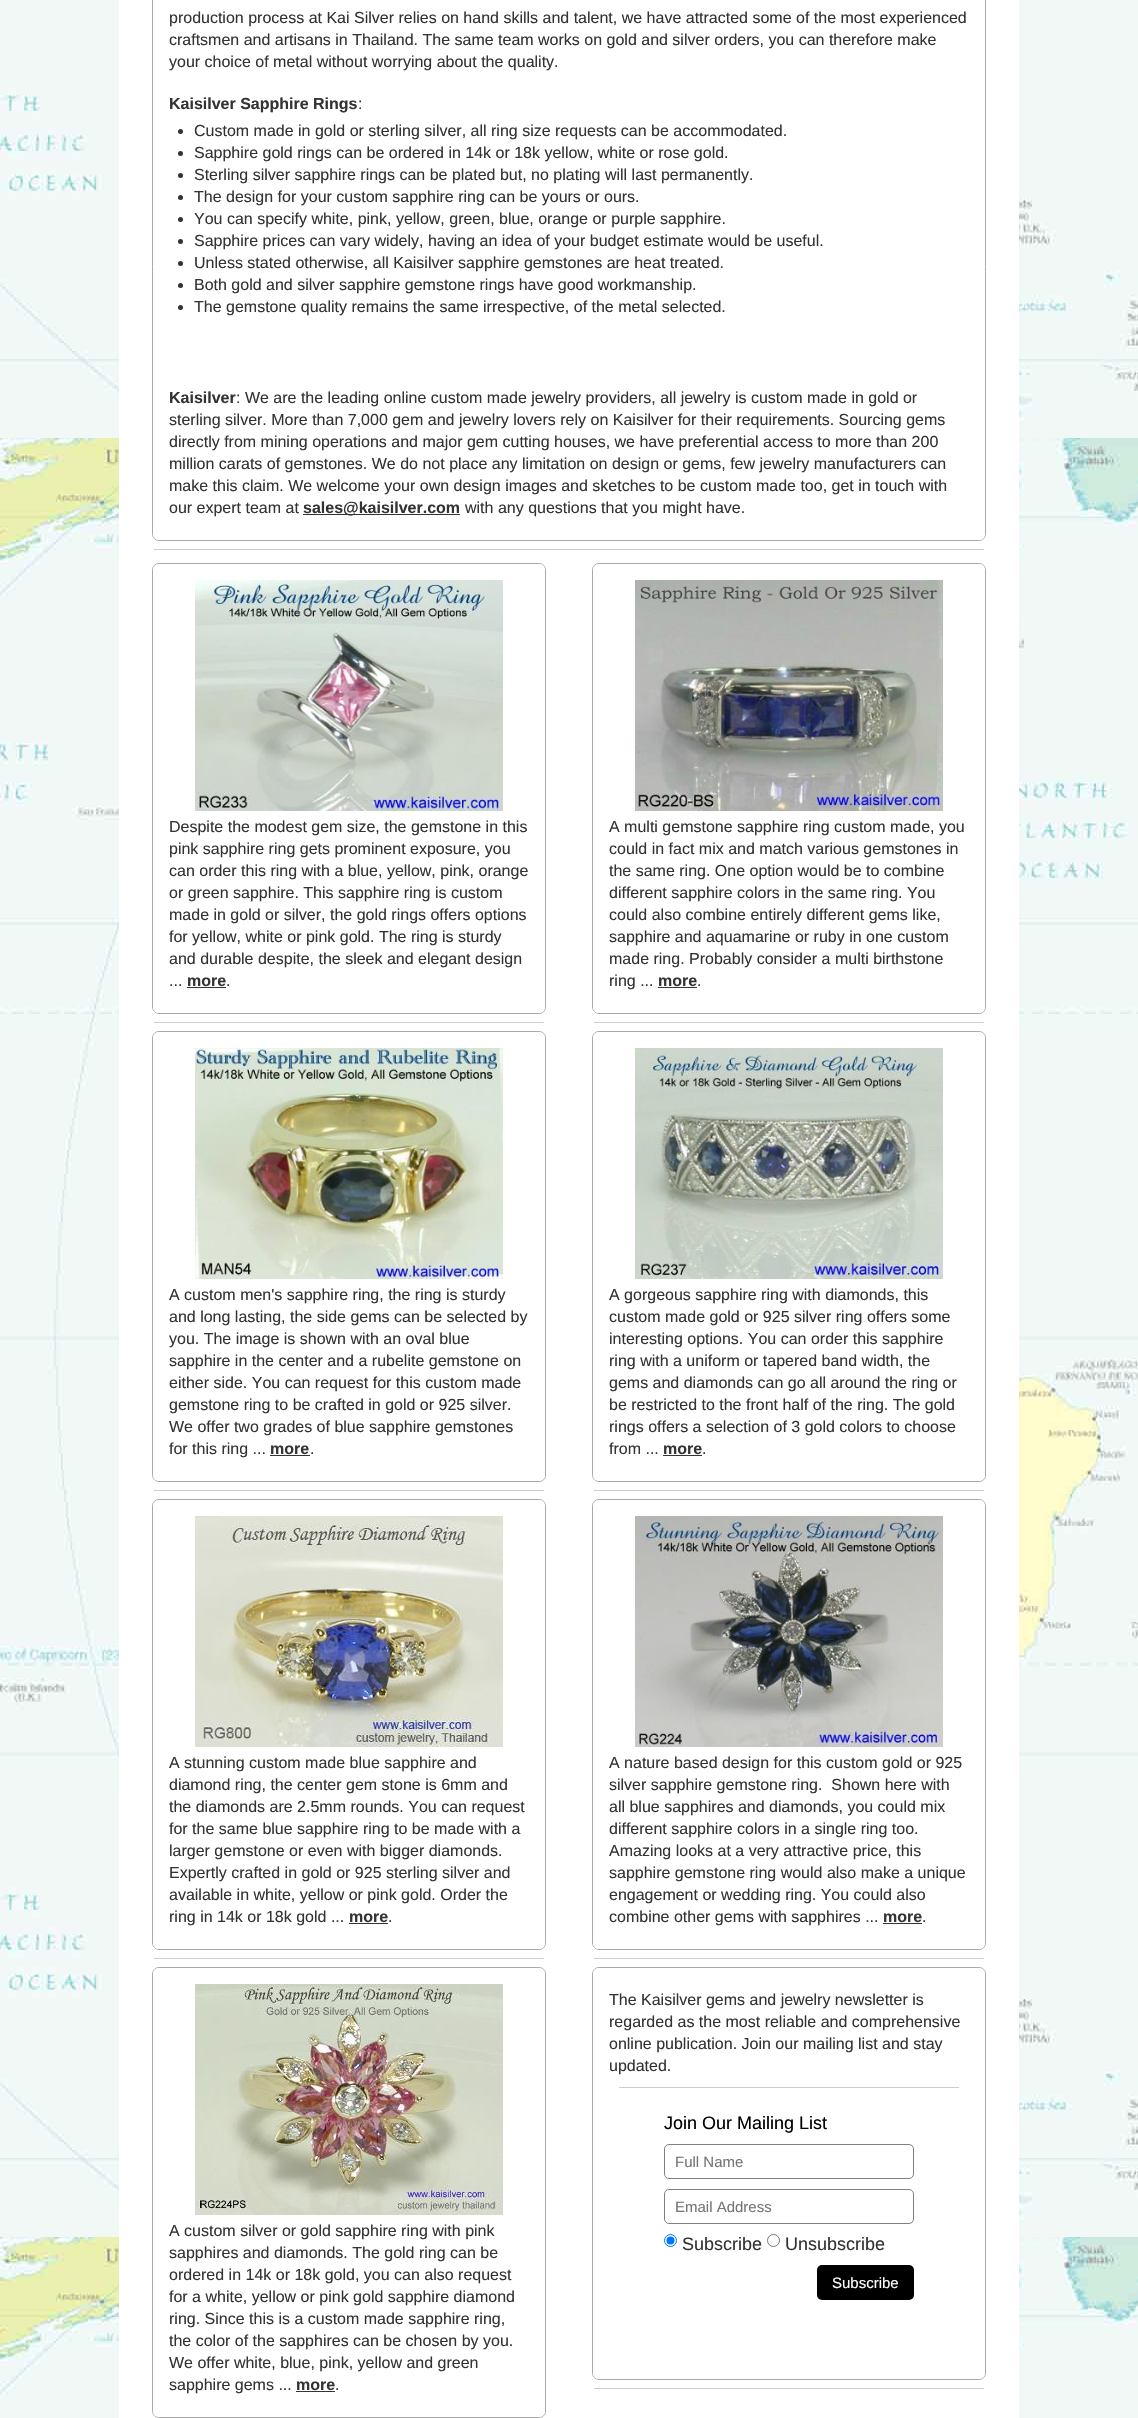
#include "include/core/SkBlurTypes.h"
#include "include/core/SkCanvas.h"
#include "include/core/SkData.h"
#include "include/core/SkFont.h"
#include "include/core/SkFontMgr.h"
#include "include/core/SkImage.h"
#include "include/core/SkMaskFilter.h"
#include "include/core/SkPaint.h"
#include "include/core/SkPathBuilder.h"
#include "include/core/SkTextBlob.h"
#include "include/effects/SkDashPathEffect.h"
#include "include/effects/SkGradientShader.h"
#include "include/utils/SkParsePath.h"

extern sk_sp<SkFontMgr> fontMgr;

static SkFont font(const char* family, int weight, float size, bool italic = false) {
    SkFontStyle style(weight, SkFontStyle::kNormal_Width,
        italic ? SkFontStyle::kItalic_Slant : SkFontStyle::kUpright_Slant);
    SkFont result(fontMgr->matchFamilyStyle(family, style), size);
    result.setSubpixel(true);
    return result;
}

static void drawLabel(SkCanvas* canvas, const char* s, float x, float y, const SkFont& font, SkColor color) {
    SkPaint ink(SkColor4f::FromColor(color));
    ink.setAntiAlias(true);
    canvas->drawString(s, x, y, font, ink);
}

static void fillRect(SkCanvas* canvas, float x, float y, float w, float h, SkColor color) {
    SkPaint ink(SkColor4f::FromColor(color));
    ink.setAntiAlias(true);
    canvas->drawRect(SkRect::MakeXYWH(x, y, w, h), ink);
}

static void fillRRect(SkCanvas* canvas, float x, float y, float w, float h, float radius, SkColor color) {
    SkPaint ink(SkColor4f::FromColor(color));
    ink.setAntiAlias(true);
    canvas->drawRoundRect(SkRect::MakeXYWH(x, y, w, h), radius, radius, ink);
}

static void drawPhoto(SkCanvas* canvas, const char* path, float x, float y, float w, float h) {
    auto image = SkImages::DeferredFromEncodedData(SkData::MakeFromFileName(path));
    canvas->drawImageRect(image, SkRect::MakeXYWH(x, y, w, h), SkSamplingOptions());
}

void draw(SkCanvas* canvas) {
    SkPaint paint;
    paint.setAntiAlias(true);
    canvas->clear(0xFFFFFFFF);
    drawPhoto(canvas, "assets/img1.png", 0, 0, 1138, 2418);
    fillRect(canvas, 119, 0, 900, 2418, 0xFFFFFFFF);
    paint.setStroke(true);
    paint.setStrokeWidth(1);
    paint.setColor(0xFFAAAAAA);
    canvas->drawRoundRect(SkRect::MakeXYWH(152.5f, -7.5f, 833, 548), 6.5f, 6.5f, paint);
    fillRRect(canvas, 153, -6, 832, 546, 6, 0xFFFFFFFF);
    SkFont font1 = font("Liberation Sans", 400, 16);
    drawLabel(canvas, "production process at Kai Silver relies on hand skills and talent, we have attracted some of the most experienced", 169, 23, font1, 0xFF333333);
    drawLabel(canvas, "craftsmen and artisans in Thailand. The same team works on gold and silver orders, you can therefore make", 169, 45, font1, 0xFF333333);
    drawLabel(canvas, "your choice of metal without worrying about the quality.", 169, 67, font1, 0xFF333333);
    SkFont font2 = font("Liberation Sans", 700, 16);
    drawLabel(canvas, "Kaisilver Sapphire Rings", 169, 109, font2, 0xFF333333);
    drawLabel(canvas, ":", 358, 109, font1, 0xFF333333);
    paint.setStroke(false);
    paint.setColor(0xFF333333);
    canvas->drawCircle(180.5f, 131.5f, 2.5f, paint);
    drawLabel(canvas, "Custom made in gold or sterling silver, all ring size requests can be accommodated.", 194, 136, font1, 0xFF333333);
    canvas->drawCircle(180.5f, 153.5f, 2.5f, paint);
    drawLabel(canvas, "Sapphire gold rings can be ordered in 14k or 18k yellow, white or rose gold.", 194, 158, font1, 0xFF333333);
    canvas->drawCircle(180.5f, 175.5f, 2.5f, paint);
    drawLabel(canvas, "Sterling silver sapphire rings can be plated but, no plating will last permanently.", 194, 180, font1, 0xFF333333);
    canvas->drawCircle(180.5f, 197.5f, 2.5f, paint);
    drawLabel(canvas, "The design for your custom sapphire ring can be yours or ours.", 194, 202, font1, 0xFF333333);
    canvas->drawCircle(180.5f, 219.5f, 2.5f, paint);
    drawLabel(canvas, "You can specify white, pink, yellow, green, blue, orange or purple sapphire.", 194, 224, font1, 0xFF333333);
    canvas->drawCircle(180.5f, 241.5f, 2.5f, paint);
    drawLabel(canvas, "Sapphire prices can vary widely, having an idea of your budget estimate would be useful.", 194, 246, font1, 0xFF333333);
    canvas->drawCircle(180.5f, 263.5f, 2.5f, paint);
    drawLabel(canvas, "Unless stated otherwise, all Kaisilver sapphire gemstones are heat treated.", 194, 268, font1, 0xFF333333);
    canvas->drawCircle(180.5f, 285.5f, 2.5f, paint);
    drawLabel(canvas, "Both gold and silver sapphire gemstone rings have good workmanship.", 194, 290, font1, 0xFF333333);
    canvas->drawCircle(180.5f, 307.5f, 2.5f, paint);
    drawLabel(canvas, "The gemstone quality remains the same irrespective, of the metal selected.", 194, 312, font1, 0xFF333333);
    drawLabel(canvas, "Kaisilver", 169, 403, font2, 0xFF333333);
    drawLabel(canvas, ": We are the leading online custom made jewelry providers, all jewelry is custom made in gold or", 236, 403, font1, 0xFF333333);
    drawLabel(canvas, "sterling silver. More than 7,000 gem and jewelry lovers rely on Kaisilver for their requirements. Sourcing gems", 169, 425, font1, 0xFF333333);
    drawLabel(canvas, "directly from mining operations and major gem cutting houses, we have preferential access to more than 200", 169, 447, font1, 0xFF333333);
    drawLabel(canvas, "million carats of gemstones. We do not place any limitation on design or gems, few jewelry manufacturers can", 169, 469, font1, 0xFF333333);
    drawLabel(canvas, "make this claim. We welcome your own design images and sketches to be custom made too, get in touch with", 169, 491, font1, 0xFF333333);
    drawLabel(canvas, "our expert team at", 169, 513, font1, 0xFF333333);
    fillRect(canvas, 303, 514, 157, 1, 0xFF333333);
    drawLabel(canvas, "sales@kaisilver.com", 303, 513, font2, 0xFF333333);
    drawLabel(canvas, "with any questions that you might have.", 465, 513, font1, 0xFF333333);
    fillRect(canvas, 154, 549, 830, 1, 0xFFCCCCCC);
    paint.setStroke(true);
    paint.setColor(0xFFAAAAAA);
    canvas->drawRoundRect(SkRect::MakeXYWH(152.5f, 563.5f, 393, 450), 6.5f, 6.5f, paint);
    fillRRect(canvas, 153, 564, 392, 449, 6, 0xFFFFFFFF);
    drawPhoto(canvas, "assets/img2.png", 195, 580, 308, 231);
    drawLabel(canvas, "Despite the modest gem size, the gemstone in this", 169, 832, font1, 0xFF333333);
    drawLabel(canvas, "pink sapphire ring gets prominent exposure, you", 169, 854, font1, 0xFF333333);
    drawLabel(canvas, "can order this ring with a blue, yellow, pink, orange", 169, 876, font1, 0xFF333333);
    drawLabel(canvas, "or green sapphire. This sapphire ring is custom", 169, 898, font1, 0xFF333333);
    drawLabel(canvas, "made in gold or silver, the gold rings offers options", 169, 920, font1, 0xFF333333);
    drawLabel(canvas, "for yellow, white or pink gold. The ring is sturdy", 169, 942, font1, 0xFF333333);
    drawLabel(canvas, "and durable despite, the sleek and elegant design", 169, 964, font1, 0xFF333333);
    drawLabel(canvas, "...", 169, 986, font1, 0xFF333333);
    drawLabel(canvas, "more", 187, 986, font2, 0xFF333333);
    fillRect(canvas, 187, 987, 39, 1, 0xFF333333);
    drawLabel(canvas, ".", 226, 986, font1, 0xFF333333);
    fillRect(canvas, 154, 1022, 390, 1, 0xFFCCCCCC);
    canvas->drawRoundRect(SkRect::MakeXYWH(152.5f, 1031.5f, 393, 450), 6.5f, 6.5f, paint);
    fillRRect(canvas, 153, 1032, 392, 449, 6, 0xFFFFFFFF);
    drawPhoto(canvas, "assets/img3.png", 195, 1048, 308, 231);
    drawLabel(canvas, "A custom men's sapphire ring, the ring is sturdy", 169, 1300, font1, 0xFF333333);
    drawLabel(canvas, "and long lasting, the side gems can be selected by", 169, 1322, font1, 0xFF333333);
    drawLabel(canvas, "you. The image is shown with an oval blue", 169, 1344, font1, 0xFF333333);
    drawLabel(canvas, "sapphire in the center and a rubelite gemstone on", 169, 1366, font1, 0xFF333333);
    drawLabel(canvas, "either side. You can request for this custom made", 169, 1388, font1, 0xFF333333);
    drawLabel(canvas, "gemstone ring to be crafted in gold or 925 silver.", 169, 1410, font1, 0xFF333333);
    drawLabel(canvas, "We offer two grades of blue sapphire gemstones", 169, 1432, font1, 0xFF333333);
    drawLabel(canvas, "for this ring ...", 169, 1454, font1, 0xFF333333);
    drawLabel(canvas, "more", 270, 1454, font2, 0xFF333333);
    fillRect(canvas, 270, 1455, 40, 1, 0xFF333333);
    drawLabel(canvas, ".", 310, 1454, font1, 0xFF333333);
    fillRect(canvas, 154, 1490, 390, 1, 0xFFCCCCCC);
    canvas->drawRoundRect(SkRect::MakeXYWH(152.5f, 1499.5f, 393, 450), 6.5f, 6.5f, paint);
    fillRRect(canvas, 153, 1500, 392, 449, 6, 0xFFFFFFFF);
    drawPhoto(canvas, "assets/img4.png", 195, 1516, 308, 231);
    drawLabel(canvas, "A stunning custom made blue sapphire and", 169, 1768, font1, 0xFF333333);
    drawLabel(canvas, "diamond ring, the center gem stone is 6mm and", 169, 1790, font1, 0xFF333333);
    drawLabel(canvas, "the diamonds are 2.5mm rounds. You can request", 169, 1812, font1, 0xFF333333);
    drawLabel(canvas, "for the same blue sapphire ring to be made with a", 169, 1834, font1, 0xFF333333);
    drawLabel(canvas, "larger gemstone or even with bigger diamonds.", 169, 1856, font1, 0xFF333333);
    drawLabel(canvas, "Expertly crafted in gold or 925 sterling silver and", 169, 1878, font1, 0xFF333333);
    drawLabel(canvas, "available in white, yellow or pink gold. Order the", 169, 1900, font1, 0xFF333333);
    drawLabel(canvas, "ring in 14k or 18k gold ...", 169, 1922, font1, 0xFF333333);
    drawLabel(canvas, "more", 349, 1922, font2, 0xFF333333);
    fillRect(canvas, 349, 1923, 39, 1, 0xFF333333);
    drawLabel(canvas, ".", 388, 1922, font1, 0xFF333333);
    fillRect(canvas, 154, 1958, 390, 1, 0xFFCCCCCC);
    canvas->drawRoundRect(SkRect::MakeXYWH(152.5f, 1967.5f, 393, 450), 6.5f, 6.5f, paint);
    fillRRect(canvas, 153, 1968, 392, 449, 6, 0xFFFFFFFF);
    drawPhoto(canvas, "assets/img5.png", 195, 1984, 308, 231);
    drawLabel(canvas, "A custom silver or gold sapphire ring with pink", 169, 2236, font1, 0xFF333333);
    drawLabel(canvas, "sapphires and diamonds. The gold ring can be", 169, 2258, font1, 0xFF333333);
    drawLabel(canvas, "ordered in 14k or 18k gold, you can also request", 169, 2280, font1, 0xFF333333);
    drawLabel(canvas, "for a white, yellow or pink gold sapphire diamond", 169, 2302, font1, 0xFF333333);
    drawLabel(canvas, "ring. Since this is a custom made sapphire ring,", 169, 2324, font1, 0xFF333333);
    drawLabel(canvas, "the color of the sapphires can be chosen by you.", 169, 2346, font1, 0xFF333333);
    drawLabel(canvas, "We offer white, blue, pink, yellow and green", 169, 2368, font1, 0xFF333333);
    drawLabel(canvas, "sapphire gems ...", 169, 2390, font1, 0xFF333333);
    drawLabel(canvas, "more", 296, 2390, font2, 0xFF333333);
    fillRect(canvas, 296, 2391, 39, 1, 0xFF333333);
    drawLabel(canvas, ".", 335, 2390, font1, 0xFF333333);
    canvas->drawRoundRect(SkRect::MakeXYWH(592.5f, 563.5f, 393, 450), 6.5f, 6.5f, paint);
    fillRRect(canvas, 593, 564, 392, 449, 6, 0xFFFFFFFF);
    drawPhoto(canvas, "assets/img6.png", 635, 580, 308, 231);
    drawLabel(canvas, "A multi gemstone sapphire ring custom made, you", 609, 832, font1, 0xFF333333);
    drawLabel(canvas, "could in fact mix and match various gemstones in", 609, 854, font1, 0xFF333333);
    drawLabel(canvas, "the same ring. One option would be to combine", 609, 876, font1, 0xFF333333);
    drawLabel(canvas, "different sapphire colors in the same ring. You", 609, 898, font1, 0xFF333333);
    drawLabel(canvas, "could also combine entirely different gems like,", 609, 920, font1, 0xFF333333);
    drawLabel(canvas, "sapphire and aquamarine or ruby in one custom", 609, 942, font1, 0xFF333333);
    drawLabel(canvas, "made ring. Probably consider a multi birthstone", 609, 964, font1, 0xFF333333);
    drawLabel(canvas, "ring ...", 609, 986, font1, 0xFF333333);
    drawLabel(canvas, "more", 658, 986, font2, 0xFF333333);
    fillRect(canvas, 658, 987, 39, 1, 0xFF333333);
    drawLabel(canvas, ".", 697, 986, font1, 0xFF333333);
    fillRect(canvas, 594, 1022, 390, 1, 0xFFCCCCCC);
    canvas->drawRoundRect(SkRect::MakeXYWH(592.5f, 1031.5f, 393, 450), 6.5f, 6.5f, paint);
    fillRRect(canvas, 593, 1032, 392, 449, 6, 0xFFFFFFFF);
    drawPhoto(canvas, "assets/img7.png", 635, 1048, 308, 231);
    drawLabel(canvas, "A gorgeous sapphire ring with diamonds, this", 609, 1300, font1, 0xFF333333);
    drawLabel(canvas, "custom made gold or 925 silver ring offers some", 609, 1322, font1, 0xFF333333);
    drawLabel(canvas, "interesting options. You can order this sapphire", 609, 1344, font1, 0xFF333333);
    drawLabel(canvas, "ring with a uniform or tapered band width, the", 609, 1366, font1, 0xFF333333);
    drawLabel(canvas, "gems and diamonds can go all around the ring or", 609, 1388, font1, 0xFF333333);
    drawLabel(canvas, "be restricted to the front half of the ring. The gold", 609, 1410, font1, 0xFF333333);
    drawLabel(canvas, "rings offers a selection of 3 gold colors to choose", 609, 1432, font1, 0xFF333333);
    drawLabel(canvas, "from ...", 609, 1454, font1, 0xFF333333);
    drawLabel(canvas, "more", 663, 1454, font2, 0xFF333333);
    fillRect(canvas, 663, 1455, 39, 1, 0xFF333333);
    drawLabel(canvas, ".", 702, 1454, font1, 0xFF333333);
    fillRect(canvas, 594, 1490, 390, 1, 0xFFCCCCCC);
    canvas->drawRoundRect(SkRect::MakeXYWH(592.5f, 1499.5f, 393, 450), 6.5f, 6.5f, paint);
    fillRRect(canvas, 593, 1500, 392, 449, 6, 0xFFFFFFFF);
    drawPhoto(canvas, "assets/img8.png", 635, 1516, 308, 231);
    drawLabel(canvas, "A nature based design for this custom gold or 925", 609, 1768, font1, 0xFF333333);
    drawLabel(canvas, "silver sapphire gemstone ring.  Shown here with", 609, 1790, font1, 0xFF333333);
    drawLabel(canvas, "all blue sapphires and diamonds, you could mix", 609, 1812, font1, 0xFF333333);
    drawLabel(canvas, "different sapphire colors in a single ring too.", 609, 1834, font1, 0xFF333333);
    drawLabel(canvas, "Amazing looks at a very attractive price, this", 609, 1856, font1, 0xFF333333);
    drawLabel(canvas, "sapphire gemstone ring would also make a unique", 609, 1878, font1, 0xFF333333);
    drawLabel(canvas, "engagement or wedding ring. You could also", 609, 1900, font1, 0xFF333333);
    drawLabel(canvas, "combine other gems with sapphires ...", 609, 1922, font1, 0xFF333333);
    drawLabel(canvas, "more", 883, 1922, font2, 0xFF333333);
    fillRect(canvas, 883, 1923, 39, 1, 0xFF333333);
    drawLabel(canvas, ".", 922, 1922, font1, 0xFF333333);
    fillRect(canvas, 594, 1958, 390, 1, 0xFFCCCCCC);
    canvas->drawRoundRect(SkRect::MakeXYWH(592.5f, 1967.5f, 393, 412), 6.5f, 6.5f, paint);
    fillRRect(canvas, 593, 1968, 392, 411, 6, 0xFFFFFFFF);
    drawLabel(canvas, "The Kaisilver gems and jewelry newsletter is", 609, 2005, font1, 0xFF333333);
    drawLabel(canvas, "regarded as the most reliable and comprehensive", 609, 2027, font1, 0xFF333333);
    drawLabel(canvas, "online publication. Join our mailing list and stay", 609, 2049, font1, 0xFF333333);
    drawLabel(canvas, "updated.", 609, 2071, font1, 0xFF333333);
    fillRect(canvas, 619, 2087, 340, 1, 0xFFCCCCCC);
    SkFont font3 = font("Liberation Sans", 400, 18);
    drawLabel(canvas, "Join Our Mailing List", 664, 2129, font3, 0xFF000000);
    paint.setColor(0xFF808080);
    canvas->drawRoundRect(SkRect::MakeXYWH(664.5f, 2144.5f, 249, 34), 4.5f, 4.5f, paint);
    SkFont font4 = font("Liberation Sans", 400, 15);
    drawLabel(canvas, "Full Name", 675, 2167, font4, 0xFF757575);
    canvas->drawRoundRect(SkRect::MakeXYWH(664.5f, 2189.5f, 249, 34), 4.5f, 4.5f, paint);
    drawLabel(canvas, "Email Address", 675, 2212, font4, 0xFF757575);
    paint.setColor(0xFF0075FF);
    canvas->drawCircle(670.5f, 2240.5f, 6, paint);
    paint.setStroke(false);
    canvas->drawCircle(670.5f, 2240.5f, 4, paint);
    drawLabel(canvas, "Subscribe", 682, 2250, font3, 0xFF333333);
    paint.setStroke(true);
    paint.setColor(0xFF767676);
    canvas->drawCircle(773.5f, 2240.5f, 6, paint);
    drawLabel(canvas, "Unsubscribe", 785, 2250, font3, 0xFF333333);
    fillRRect(canvas, 817, 2265, 97, 35, 5, 0xFF000000);
    drawLabel(canvas, "Subscribe", 832, 2288, font4, 0xFFFFFFFF);
    fillRect(canvas, 594, 2388, 390, 1, 0xFFCCCCCC);
}
